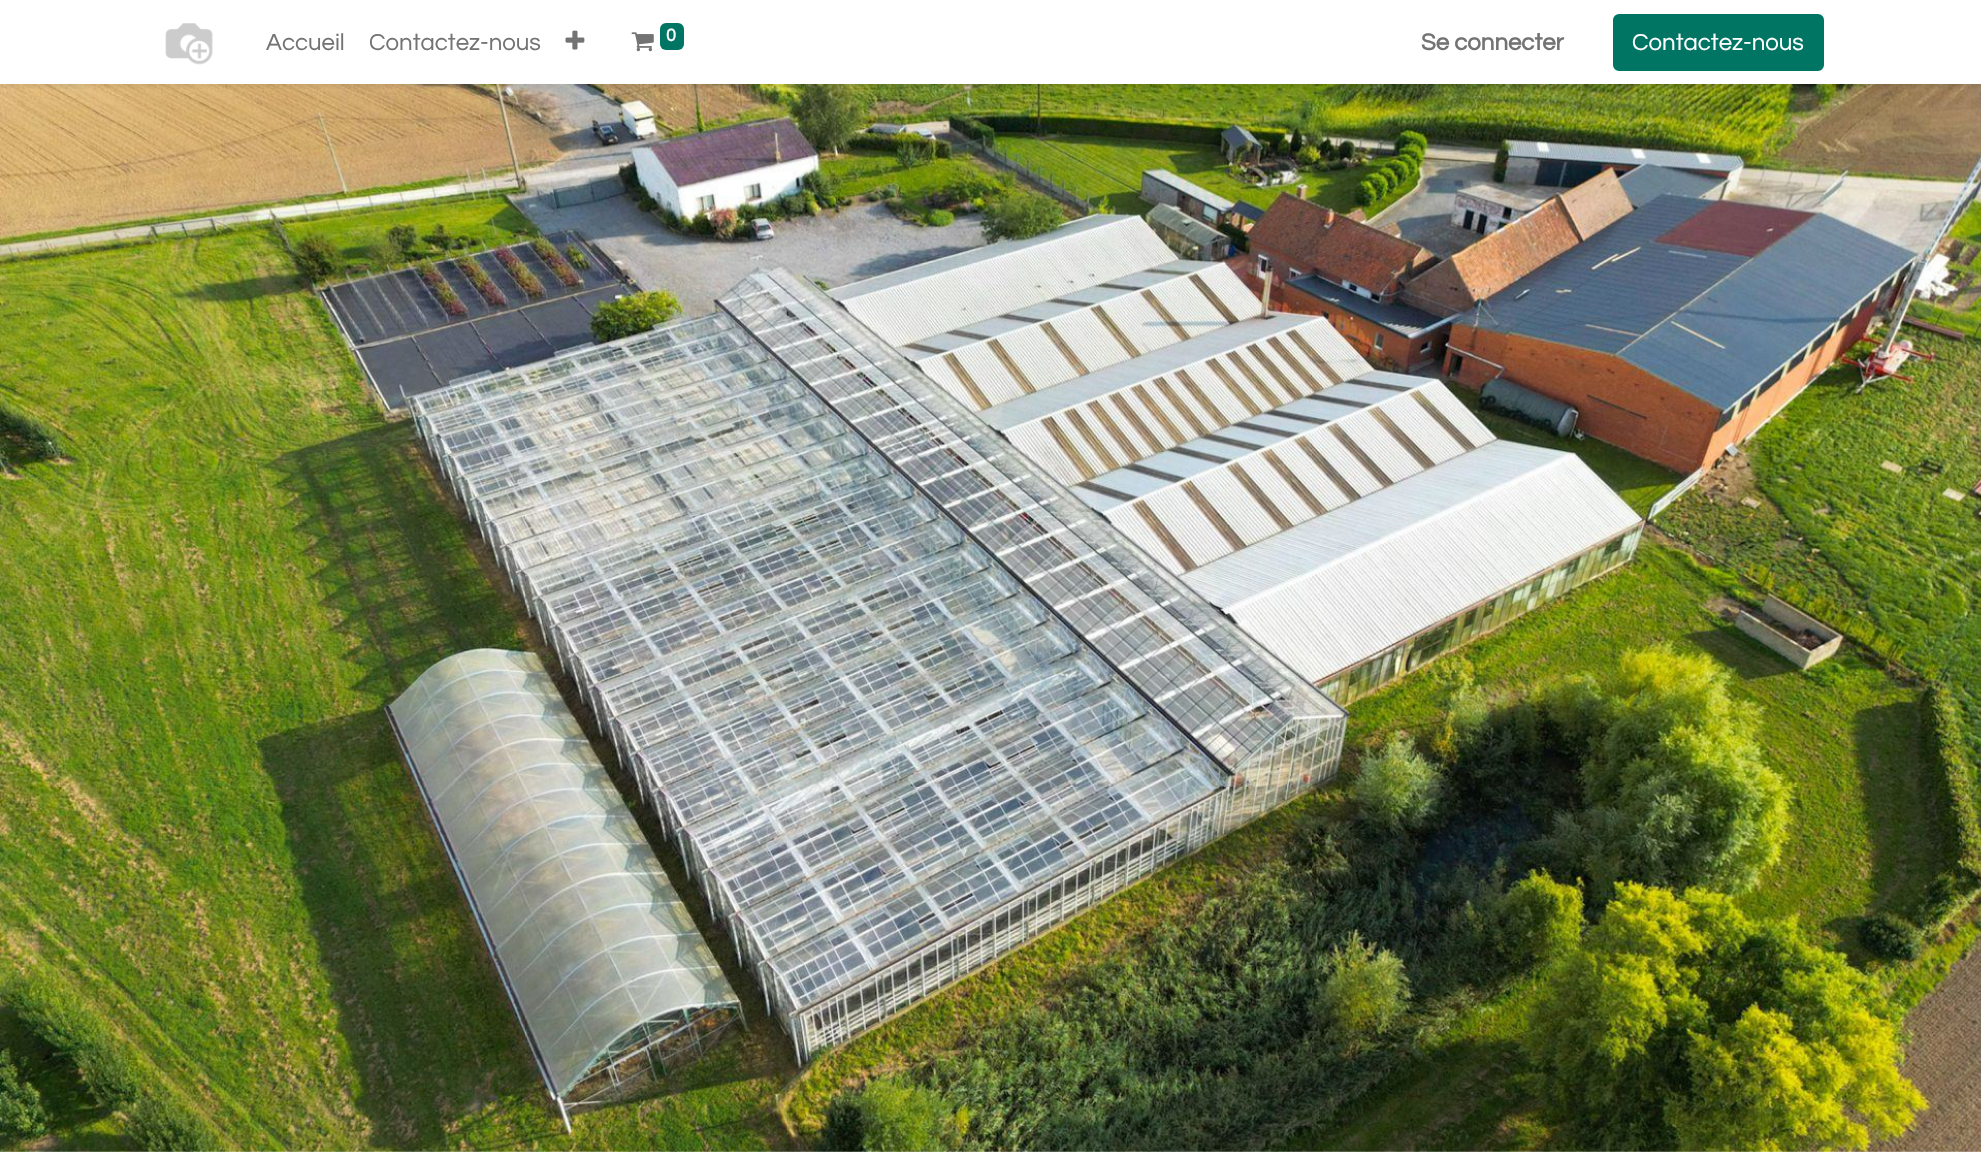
#include "include/core/SkBlurTypes.h"
#include "include/core/SkCanvas.h"
#include "include/core/SkData.h"
#include "include/core/SkFont.h"
#include "include/core/SkFontMgr.h"
#include "include/core/SkImage.h"
#include "include/core/SkMaskFilter.h"
#include "include/core/SkPaint.h"
#include "include/core/SkPathBuilder.h"
#include "include/core/SkTextBlob.h"
#include "include/effects/SkDashPathEffect.h"
#include "include/effects/SkGradientShader.h"
#include "include/utils/SkParsePath.h"

extern sk_sp<SkFontMgr> fontMgr;

static SkFont font(const char* family, int weight, float size, bool italic = false) {
    SkFontStyle style(weight, SkFontStyle::kNormal_Width,
        italic ? SkFontStyle::kItalic_Slant : SkFontStyle::kUpright_Slant);
    SkFont result(fontMgr->matchFamilyStyle(family, style), size);
    result.setSubpixel(true);
    return result;
}

static void drawLabel(SkCanvas* canvas, const char* s, float x, float y, const SkFont& font, SkColor color) {
    SkPaint ink(SkColor4f::FromColor(color));
    ink.setAntiAlias(true);
    canvas->drawString(s, x, y, font, ink);
}

static void fillRRect(SkCanvas* canvas, float x, float y, float w, float h, float radius, SkColor color) {
    SkPaint ink(SkColor4f::FromColor(color));
    ink.setAntiAlias(true);
    canvas->drawRoundRect(SkRect::MakeXYWH(x, y, w, h), radius, radius, ink);
}

static void drawPhoto(SkCanvas* canvas, const char* path, float x, float y, float w, float h) {
    auto image = SkImages::DeferredFromEncodedData(SkData::MakeFromFileName(path));
    canvas->drawImageRect(image, SkRect::MakeXYWH(x, y, w, h), SkSamplingOptions());
}

void draw(SkCanvas* canvas) {
    SkPaint paint;
    paint.setAntiAlias(true);
    canvas->clear(0xFFFFFFFF);
    drawPhoto(canvas, "assets/img4.png", 0, 84, 1981, 1068);
    canvas->save();
    canvas->clipRect(SkRect::MakeXYWH(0, 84, 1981, 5));
    paint.setColor(0x12000000);
    paint.setMaskFilter(SkMaskFilter::MakeBlur(kNormal_SkBlurStyle, 3));
    canvas->drawRect(SkRect::MakeXYWH(0, 3, 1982, 84), paint);
    paint.setMaskFilter(nullptr);
    canvas->restore();
    drawPhoto(canvas, "assets/img1.png", 165, 23, 48, 42);
    SkFont font1 = font("Questrial", 400, 24);
    drawLabel(canvas, "Accueil", 266, 50, font1, 0xFF737373);
    drawLabel(canvas, "Contactez-nous", 369, 50, font1, 0xFF737373);
    drawPhoto(canvas, "assets/img2.png", 565, 30, 20, 20);
    drawPhoto(canvas, "assets/img3.png", 631, 32, 23, 20);
    fillRRect(canvas, 660, 23, 24, 27, 6, 0xFF007564);
    SkFont font2 = font("Questrial", 700, 18);
    drawLabel(canvas, "0", 666, 41, font2, 0xFFFFFFFF);
    SkFont font3 = font("Questrial", 700, 24);
    drawLabel(canvas, "Se connecter", 1421, 50, font3, 0xFF737373);
    paint.setColor(0xFF007564);
    canvas->drawRoundRect(SkRect::MakeXYWH(1614, 15, 209, 55), 5, 5, paint);
    paint.setStroke(true);
    paint.setStrokeWidth(2);
    canvas->drawRoundRect(SkRect::MakeXYWH(1614, 15, 209, 55), 5, 5, paint);
    drawLabel(canvas, "Contactez-nous", 1632, 50, font1, 0xFFFFFFFF);
}
